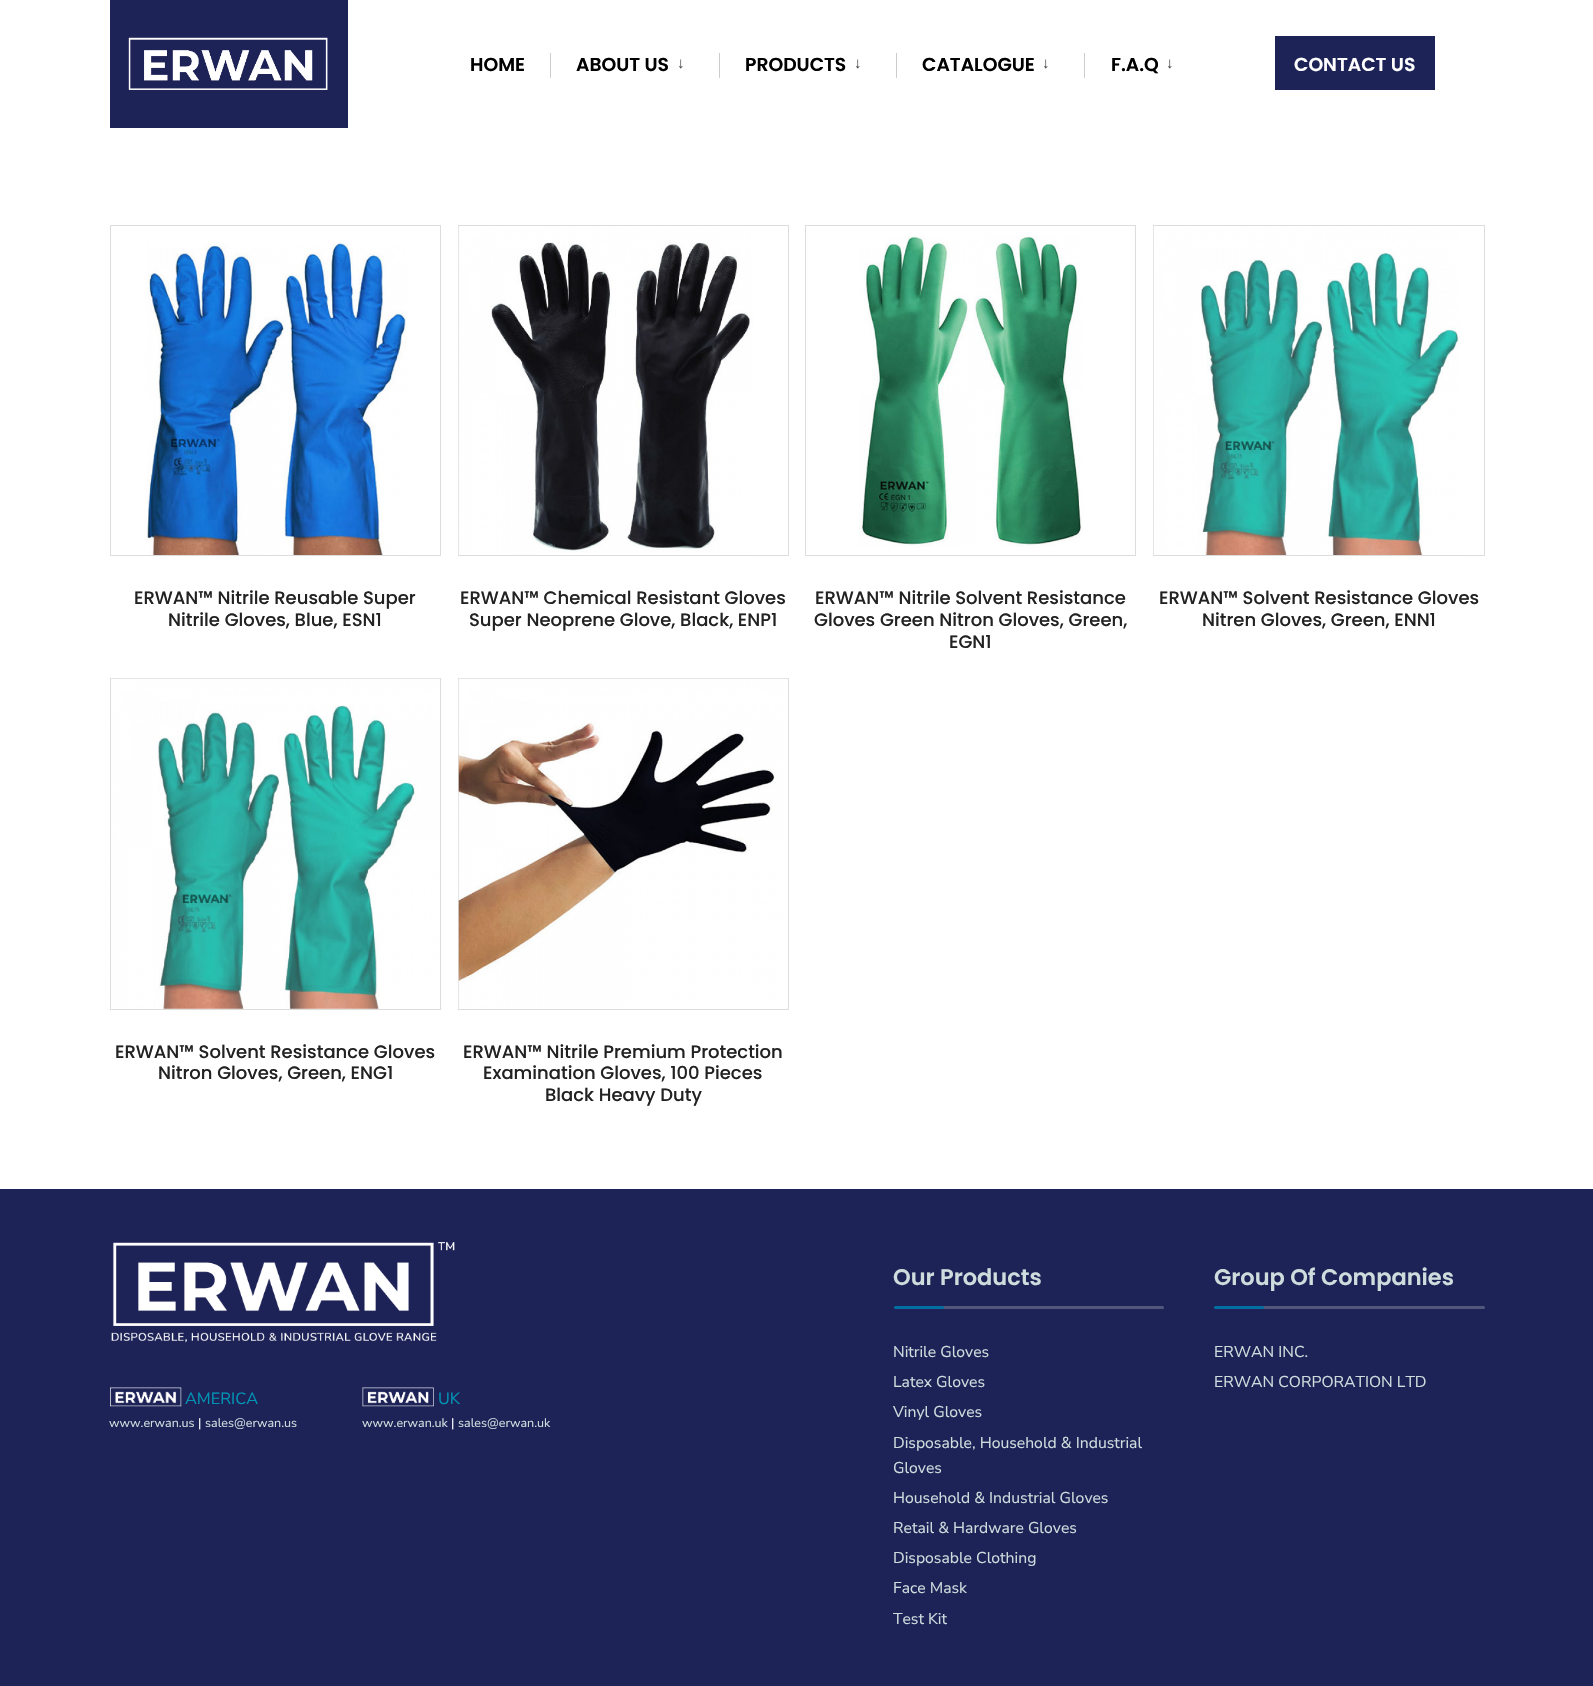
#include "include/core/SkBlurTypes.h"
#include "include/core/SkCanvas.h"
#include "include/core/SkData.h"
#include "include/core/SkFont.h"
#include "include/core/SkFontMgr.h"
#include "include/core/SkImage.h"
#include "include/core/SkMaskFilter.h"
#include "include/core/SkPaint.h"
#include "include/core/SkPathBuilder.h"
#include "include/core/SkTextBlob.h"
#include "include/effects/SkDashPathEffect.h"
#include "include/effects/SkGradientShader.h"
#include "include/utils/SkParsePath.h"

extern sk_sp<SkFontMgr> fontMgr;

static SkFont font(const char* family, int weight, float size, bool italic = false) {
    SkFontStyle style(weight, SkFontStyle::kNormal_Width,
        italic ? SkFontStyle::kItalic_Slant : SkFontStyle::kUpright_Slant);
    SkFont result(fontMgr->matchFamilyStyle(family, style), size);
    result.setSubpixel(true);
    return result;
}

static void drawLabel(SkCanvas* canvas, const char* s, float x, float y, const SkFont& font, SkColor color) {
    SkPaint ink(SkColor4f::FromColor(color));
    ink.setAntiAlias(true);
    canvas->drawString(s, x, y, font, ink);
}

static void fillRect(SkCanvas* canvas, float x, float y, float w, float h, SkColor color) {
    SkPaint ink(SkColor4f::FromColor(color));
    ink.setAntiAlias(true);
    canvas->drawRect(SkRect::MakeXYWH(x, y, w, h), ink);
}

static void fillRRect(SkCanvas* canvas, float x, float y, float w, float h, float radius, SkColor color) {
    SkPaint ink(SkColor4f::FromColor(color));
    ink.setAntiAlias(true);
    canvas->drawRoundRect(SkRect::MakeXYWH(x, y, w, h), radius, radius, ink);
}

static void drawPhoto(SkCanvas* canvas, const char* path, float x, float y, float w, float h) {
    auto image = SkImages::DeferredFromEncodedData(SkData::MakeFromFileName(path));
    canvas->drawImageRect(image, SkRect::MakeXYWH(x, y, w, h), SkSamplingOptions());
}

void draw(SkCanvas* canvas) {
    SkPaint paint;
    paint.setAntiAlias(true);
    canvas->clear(0xFFFFFFFF);
    fillRect(canvas, 110, 0, 238, 128, 0xFF1D2357);
    drawPhoto(canvas, "assets/img1.png", 128, 37, 200, 53);
    SkFont font1 = font("Poppins", 600, 18.75f);
    drawLabel(canvas, "HOME", 470, 71, font1, 0xFF000000);
    fillRect(canvas, 550, 53, 1, 25, 0xFFCCCCCC);
    drawLabel(canvas, "ABOUT US", 576, 71, font1, 0xFF000000);
    SkFont font2 = font("Liberation Sans", 400, 15);
    drawLabel(canvas, "↓", 677, 68, font2, 0xFF4D4D4D);
    fillRect(canvas, 719, 53, 1, 25, 0xFFCCCCCC);
    drawLabel(canvas, "PRODUCTS", 745, 71, font1, 0xFF000000);
    drawLabel(canvas, "↓", 854, 68, font2, 0xFF4D4D4D);
    fillRect(canvas, 896, 53, 1, 25, 0xFFCCCCCC);
    drawLabel(canvas, "CATALOGUE", 922, 71, font1, 0xFF000000);
    drawLabel(canvas, "↓", 1042, 68, font2, 0xFF4D4D4D);
    fillRect(canvas, 1084, 53, 1, 25, 0xFFCCCCCC);
    drawLabel(canvas, "F.A.Q", 1111, 71, font1, 0xFF000000);
    drawLabel(canvas, "↓", 1166, 68, font2, 0xFF4D4D4D);
    fillRect(canvas, 1275, 36, 160, 54, 0xFF1D2357);
    drawLabel(canvas, "CONTACT US", 1294, 71, font1, 0xFFFFFFFF);
    paint.setStroke(true);
    paint.setStrokeWidth(1);
    paint.setColor(0xFFDDDDDD);
    canvas->drawRect(SkRect::MakeXYWH(110.5f, 225.5f, 330, 330), paint);
    drawPhoto(canvas, "assets/img2.png", 146, 242, 261, 313);
    SkFont font3 = font("Poppins", 500, 18);
    drawLabel(canvas, "ERWAN™ Nitrile Reusable Super", 134, 604, font3, 0xFF222222);
    drawLabel(canvas, "Nitrile Gloves, Blue, ESN1", 168, 626, font3, 0xFF222222);
    canvas->drawRect(SkRect::MakeXYWH(458.5f, 225.5f, 330, 330), paint);
    drawPhoto(canvas, "assets/img3.png", 458, 226, 295, 329);
    drawLabel(canvas, "ERWAN™ Chemical Resistant Gloves", 460, 604, font3, 0xFF222222);
    drawLabel(canvas, "Super Neoprene Glove, Black, ENP1", 469, 626, font3, 0xFF222222);
    canvas->drawRect(SkRect::MakeXYWH(805.5f, 225.5f, 330, 330), paint);
    drawPhoto(canvas, "assets/img4.png", 859, 235, 224, 312);
    drawLabel(canvas, "ERWAN™ Nitrile Solvent Resistance", 815, 604, font3, 0xFF222222);
    drawLabel(canvas, "Gloves Green Nitron Gloves, Green,", 814, 626, font3, 0xFF222222);
    drawLabel(canvas, "EGN1", 949, 648, font3, 0xFF222222);
    canvas->drawRect(SkRect::MakeXYWH(1153.5f, 225.5f, 331, 330), paint);
    drawPhoto(canvas, "assets/img5.png", 1153, 226, 308, 329);
    drawLabel(canvas, "ERWAN™ Solvent Resistance Gloves", 1159, 604, font3, 0xFF222222);
    drawLabel(canvas, "Nitren Gloves, Green, ENN1", 1202, 626, font3, 0xFF222222);
    canvas->drawRect(SkRect::MakeXYWH(110.5f, 678.5f, 330, 331), paint);
    drawPhoto(canvas, "assets/img6.png", 111, 678, 329, 331);
    drawLabel(canvas, "ERWAN™ Solvent Resistance Gloves", 115, 1058, font3, 0xFF222222);
    drawLabel(canvas, "Nitron Gloves, Green, ENG1", 158, 1079, font3, 0xFF222222);
    canvas->drawRect(SkRect::MakeXYWH(458.5f, 678.5f, 330, 331), paint);
    drawPhoto(canvas, "assets/img7.png", 458, 678, 330, 331);
    drawLabel(canvas, "ERWAN™ Nitrile Premium Protection", 463, 1058, font3, 0xFF222222);
    drawLabel(canvas, "Examination Gloves, 100 Pieces", 483, 1079, font3, 0xFF222222);
    drawLabel(canvas, "Black Heavy Duty", 545, 1101, font3, 0xFF222222);
    fillRect(canvas, 0, 1189, 1593, 497, 0xFF1D2357);
    drawPhoto(canvas, "assets/img8.png", 111, 1242, 344, 101);
    drawPhoto(canvas, "assets/img9.png", 110, 1387, 72, 20);
    SkFont font4 = font("Nunito Sans", 400, 16.25f);
    drawLabel(canvas, "AMERICA", 185, 1404, font4, 0xFF0094B4);
    SkFont font5 = font("Nunito Sans", 400, 12.5f);
    drawLabel(canvas, "www.erwan.us", 109, 1427, font5, 0xFFCEDCDD);
    drawLabel(canvas, "|", 198, 1427, font5, 0xFFFFFFFF);
    drawLabel(canvas, "sales@erwan.us", 205, 1427, font5, 0xFFCEDCDD);
    drawPhoto(canvas, "assets/img10.png", 362, 1387, 72, 20);
    drawLabel(canvas, "UK", 438, 1404, font4, 0xFF0094B4);
    drawLabel(canvas, "www.erwan.uk", 362, 1427, font5, 0xFFCEDCDD);
    drawLabel(canvas, "|", 451, 1427, font5, 0xFFFFFFFF);
    drawLabel(canvas, "sales@erwan.uk", 458, 1427, font5, 0xFFCEDCDD);
    SkFont font6 = font("Poppins", 600, 22.5f);
    drawLabel(canvas, "Our Products", 893, 1285, font6, 0xFFCEDCDD);
    fillRRect(canvas, 941, 1306, 223, 3, 1.5f, 0xFF52567A);
    fillRRect(canvas, 894, 1306, 50, 3, 1.5f, 0xFF006EA1);
    SkFont font7 = font("Nunito Sans", 400, 15.75f);
    drawLabel(canvas, "Nitrile Gloves", 893, 1357, font7, 0xFFCEDCDD);
    drawLabel(canvas, "Latex Gloves", 893, 1387, font7, 0xFFCEDCDD);
    drawLabel(canvas, "Vinyl Gloves", 893, 1417, font7, 0xFFCEDCDD);
    drawLabel(canvas, "Disposable, Household & Industrial", 893, 1448, font7, 0xFFCEDCDD);
    drawLabel(canvas, "Gloves", 893, 1473, font7, 0xFFCEDCDD);
    drawLabel(canvas, "Household & Industrial Gloves", 893, 1503, font7, 0xFFCEDCDD);
    drawLabel(canvas, "Retail & Hardware Gloves", 893, 1533, font7, 0xFFCEDCDD);
    drawLabel(canvas, "Disposable Clothing", 893, 1563, font7, 0xFFCEDCDD);
    drawLabel(canvas, "Face Mask", 893, 1593, font7, 0xFFCEDCDD);
    drawLabel(canvas, "Test Kit", 893, 1624, font7, 0xFFCEDCDD);
    drawLabel(canvas, "Group Of Companies", 1214, 1285, font6, 0xFFCEDCDD);
    fillRRect(canvas, 1261, 1306, 224, 3, 1.5f, 0xFF52567A);
    fillRRect(canvas, 1214, 1306, 50, 3, 1.5f, 0xFF006EA1);
    drawLabel(canvas, "ERWAN INC.", 1214, 1357, font7, 0xFFCEDCDD);
    drawLabel(canvas, "ERWAN CORPORATION LTD", 1214, 1387, font7, 0xFFCEDCDD);
}
